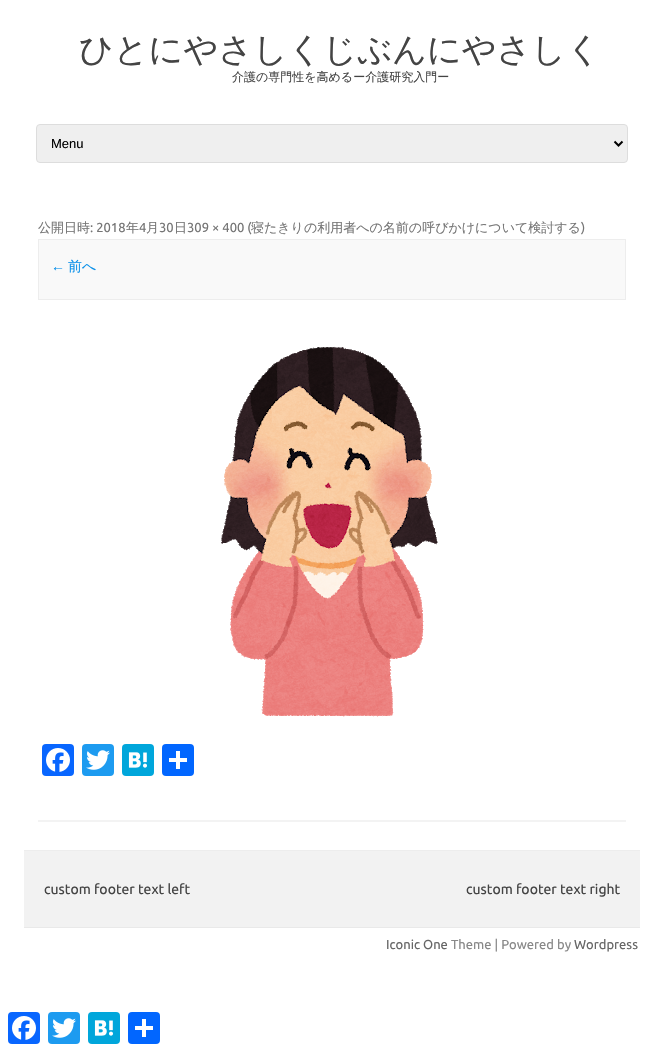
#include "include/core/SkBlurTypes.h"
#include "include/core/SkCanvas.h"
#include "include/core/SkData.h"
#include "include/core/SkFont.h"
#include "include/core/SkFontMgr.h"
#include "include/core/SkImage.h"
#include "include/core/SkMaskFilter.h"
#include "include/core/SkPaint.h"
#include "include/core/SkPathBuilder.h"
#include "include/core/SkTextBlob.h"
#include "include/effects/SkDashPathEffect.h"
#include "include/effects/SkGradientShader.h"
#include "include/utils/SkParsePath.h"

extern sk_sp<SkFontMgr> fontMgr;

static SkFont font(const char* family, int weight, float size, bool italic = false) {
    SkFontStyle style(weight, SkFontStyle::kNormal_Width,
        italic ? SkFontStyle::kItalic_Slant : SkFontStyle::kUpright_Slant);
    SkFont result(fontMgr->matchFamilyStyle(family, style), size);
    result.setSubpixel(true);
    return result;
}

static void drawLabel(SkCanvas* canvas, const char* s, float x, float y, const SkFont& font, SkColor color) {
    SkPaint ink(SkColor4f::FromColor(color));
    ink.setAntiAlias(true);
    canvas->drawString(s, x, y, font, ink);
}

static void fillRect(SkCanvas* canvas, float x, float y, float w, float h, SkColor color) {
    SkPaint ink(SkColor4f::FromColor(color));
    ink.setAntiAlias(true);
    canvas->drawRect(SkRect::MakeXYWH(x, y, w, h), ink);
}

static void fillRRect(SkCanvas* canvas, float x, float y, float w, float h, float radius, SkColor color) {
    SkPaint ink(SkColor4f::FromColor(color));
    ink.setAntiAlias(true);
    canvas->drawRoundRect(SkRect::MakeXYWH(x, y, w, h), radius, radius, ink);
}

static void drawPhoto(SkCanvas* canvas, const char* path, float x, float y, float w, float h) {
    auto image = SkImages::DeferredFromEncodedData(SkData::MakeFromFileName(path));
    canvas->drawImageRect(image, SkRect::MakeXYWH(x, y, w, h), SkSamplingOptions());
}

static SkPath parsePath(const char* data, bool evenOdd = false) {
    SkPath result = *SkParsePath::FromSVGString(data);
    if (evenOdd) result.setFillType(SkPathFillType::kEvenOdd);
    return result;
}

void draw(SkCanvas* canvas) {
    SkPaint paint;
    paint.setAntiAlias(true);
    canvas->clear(0xFFFFFFFF);
    SkFont font1 = font("WenQuanYi Zen Hei", 500, 34);
    drawLabel(canvas, "ひとにやさしくじぶんにやさしく", 79, 61, font1, 0xFF444444);
    SkFont font2 = font("WenQuanYi Zen Hei", 500, 12);
    drawLabel(canvas, "介護の専門性を高めるー介護研究入門ー", 232, 81, font2, 0xFF444444);
    paint.setColor(0xFFEFEFEF);
    canvas->drawRoundRect(SkRect::MakeXYWH(36.5f, 124.5f, 591, 38), 3.5f, 3.5f, paint);
    paint.setStroke(true);
    paint.setStrokeWidth(1);
    paint.setColor(0xFFDDDDDD);
    canvas->drawRoundRect(SkRect::MakeXYWH(36.5f, 124.5f, 591, 38), 3.5f, 3.5f, paint);
    paint.setStrokeWidth(2);
    paint.setColor(0xFF000000);
    canvas->drawPath(parsePath("M614.5 141.5L618.5 145.5L622.5 141.5"), paint);
    SkFont font3 = font("Liberation Sans", 400, 13);
    drawLabel(canvas, "Menu", 51, 148, font3, 0xFF000000);
    fillRect(canvas, 38, 820, 588, 2, 0xFFF3F3F3);
    SkFont font4 = font("WenQuanYi Zen Hei", 500, 13);
    drawLabel(canvas, "公開日時", 38, 232, font4, 0xFF757575);
    SkFont font5 = font("Ubuntu", 400, 13);
    drawLabel(canvas, ": 2018", 90, 232, font5, 0xFF757575);
    drawLabel(canvas, "年", 126, 232, font4, 0xFF757575);
    drawLabel(canvas, "4", 139, 232, font5, 0xFF757575);
    drawLabel(canvas, "月", 146, 232, font4, 0xFF757575);
    drawLabel(canvas, "30", 159, 232, font5, 0xFF757575);
    drawLabel(canvas, "日", 174, 232, font4, 0xFF757575);
    drawLabel(canvas, "309 × 400 (", 187, 232, font5, 0xFF757575);
    drawLabel(canvas, "寝たきりの利用者への名前の呼びかけについて検討する", 251, 232, font4, 0xFF757575);
    drawLabel(canvas, ")", 581, 232, font5, 0xFF757575);
    paint.setStroke(false);
    paint.setColor(0xFFF9F9F9);
    canvas->drawRect(SkRect::MakeXYWH(38.5f, 239.5f, 587, 60), paint);
    paint.setStroke(true);
    paint.setStrokeWidth(1);
    paint.setColor(0xFFEDEDED);
    canvas->drawRect(SkRect::MakeXYWH(38.5f, 239.5f, 587, 60), paint);
    SkFont font6 = font("Liberation Sans", 400, 14);
    drawLabel(canvas, "←", 51, 271, font6, 0xFF0B91EA);
    SkFont font7 = font("WenQuanYi Zen Hei", 500, 14);
    drawLabel(canvas, "前へ", 68, 271, font7, 0xFF0B91EA);
    drawPhoto(canvas, "assets/img1.png", 221, 346, 217, 371);
    fillRRect(canvas, 42, 744, 32, 32, 4, 0xFF0866FF);
    drawPhoto(canvas, "assets/img2.png", 46, 748, 24, 24);
    fillRRect(canvas, 82, 744, 32, 32, 4, 0xFF1D9BF0);
    drawPhoto(canvas, "assets/img3.png", 86, 750, 24, 20);
    fillRRect(canvas, 122, 744, 32, 32, 4, 0xFF00A6DB);
    drawPhoto(canvas, "assets/img4.png", 128, 752, 19, 16);
    fillRRect(canvas, 162, 744, 32, 32, 4, 0xFF0166FF);
    fillRect(canvas, 176, 751, 4, 18, 0xFFFFFFFF);
    fillRect(canvas, 169, 758, 18, 4, 0xFFFFFFFF);
    fillRect(canvas, 24, 851, 616, 76, 0xFFF2F2F2);
    fillRect(canvas, 24, 850, 616, 1, 0xFFEDEDED);
    fillRect(canvas, 24, 927, 616, 1, 0xFFE9E9E9);
    SkFont font8 = font("Ubuntu", 400, 14);
    drawLabel(canvas, "custom footer text left", 44, 894, font8, 0xFF444444);
    drawLabel(canvas, "custom footer text right", 466, 894, font8, 0xFF444444);
    drawLabel(canvas, "Iconic One", 386, 949, font5, 0xFF666666);
    drawLabel(canvas, "Theme | Powered by", 451, 949, font5, 0xFF888888);
    drawLabel(canvas, "Wordpress", 574, 949, font5, 0xFF666666);
    fillRRect(canvas, 8, 1012, 32, 32, 4, 0xFF0866FF);
    drawPhoto(canvas, "assets/img2.png", 12, 1016, 24, 24);
    fillRRect(canvas, 48, 1012, 32, 32, 4, 0xFF1D9BF0);
    drawPhoto(canvas, "assets/img3.png", 52, 1018, 24, 20);
    fillRRect(canvas, 88, 1012, 32, 32, 4, 0xFF00A6DB);
    drawPhoto(canvas, "assets/img4.png", 94, 1020, 19, 16);
    fillRRect(canvas, 128, 1012, 32, 32, 4, 0xFF0166FF);
    fillRect(canvas, 142, 1019, 4, 18, 0xFFFFFFFF);
    fillRect(canvas, 135, 1026, 18, 4, 0xFFFFFFFF);
}
